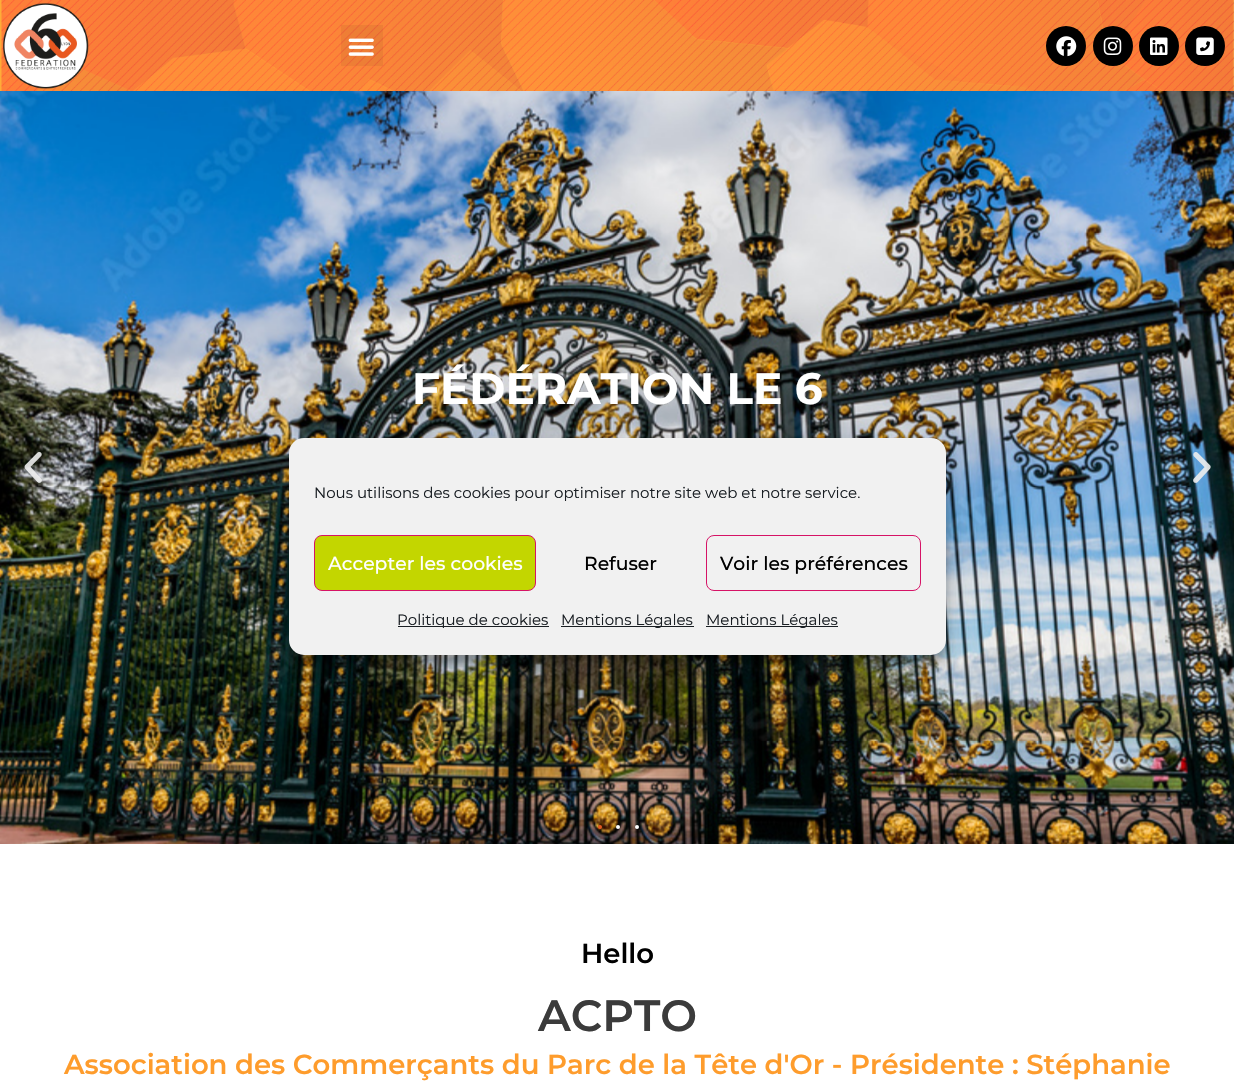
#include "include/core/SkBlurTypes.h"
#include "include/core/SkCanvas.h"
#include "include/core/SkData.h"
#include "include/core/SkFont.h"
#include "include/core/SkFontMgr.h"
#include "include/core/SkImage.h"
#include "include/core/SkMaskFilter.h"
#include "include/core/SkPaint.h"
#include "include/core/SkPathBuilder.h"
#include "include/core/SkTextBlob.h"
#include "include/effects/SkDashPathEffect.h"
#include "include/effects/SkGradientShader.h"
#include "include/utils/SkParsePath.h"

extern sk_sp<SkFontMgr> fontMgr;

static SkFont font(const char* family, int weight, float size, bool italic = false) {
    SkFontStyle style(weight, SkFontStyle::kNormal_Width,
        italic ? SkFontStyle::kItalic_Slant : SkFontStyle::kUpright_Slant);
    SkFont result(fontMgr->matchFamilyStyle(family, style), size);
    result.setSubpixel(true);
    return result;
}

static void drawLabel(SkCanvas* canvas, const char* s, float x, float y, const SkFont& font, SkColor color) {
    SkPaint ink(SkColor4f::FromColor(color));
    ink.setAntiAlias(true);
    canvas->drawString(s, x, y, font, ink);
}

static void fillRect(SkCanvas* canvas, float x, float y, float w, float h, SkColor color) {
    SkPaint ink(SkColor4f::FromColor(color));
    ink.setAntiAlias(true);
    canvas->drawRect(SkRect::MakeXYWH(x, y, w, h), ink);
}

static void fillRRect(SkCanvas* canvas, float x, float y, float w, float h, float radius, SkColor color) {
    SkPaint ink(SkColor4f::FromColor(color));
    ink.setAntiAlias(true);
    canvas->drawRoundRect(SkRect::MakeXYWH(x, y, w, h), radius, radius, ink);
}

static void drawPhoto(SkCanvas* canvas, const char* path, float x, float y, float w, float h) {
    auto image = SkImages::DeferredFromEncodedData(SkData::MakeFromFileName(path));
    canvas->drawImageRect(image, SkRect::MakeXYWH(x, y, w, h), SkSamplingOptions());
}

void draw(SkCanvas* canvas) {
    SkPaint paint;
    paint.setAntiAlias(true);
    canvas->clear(0xFFFFFFFF);
    drawPhoto(canvas, "assets/img1.png", 0, 0, 1234, 91);
    drawPhoto(canvas, "assets/img2.png", 3, 3, 86, 86);
    fillRect(canvas, 341, 25, 42, 41, 0x0D000000);
    drawPhoto(canvas, "assets/img3.png", 348, 38, 26, 18);
    paint.setColor(0xFF000000);
    canvas->drawCircle(1066, 46, 20, paint);
    drawPhoto(canvas, "assets/img4.png", 1056, 36, 21, 21);
    canvas->drawCircle(1113, 46, 20, paint);
    drawPhoto(canvas, "assets/img5.png", 1103, 37, 19, 18);
    canvas->drawCircle(1159, 46, 20, paint);
    drawPhoto(canvas, "assets/img6.png", 1150, 37, 18, 18);
    canvas->drawCircle(1205, 46, 20, paint);
    drawPhoto(canvas, "assets/img7.png", 1196, 37, 18, 18);
    drawPhoto(canvas, "assets/img8.png", 0, 91, 1234, 753);
    SkFont font1 = font("Montserrat", 700, 43.75f);
    drawLabel(canvas, "FÉDÉRATION LE 6", 412, 404, font1, 0xFFFFFFFF);
    drawPhoto(canvas, "assets/img9.png", 24, 452, 18, 31);
    drawPhoto(canvas, "assets/img10.png", 1193, 452, 18, 31);
    paint.setColor(0xFFE75920);
    canvas->drawCircle(600, 827, 2, paint);
    paint.setColor(0xFFFFFFFF);
    canvas->drawCircle(618, 827, 2, paint);
    canvas->drawCircle(637, 827, 2, paint);
    SkFont font2 = font("Montserrat", 600, 27.5f);
    drawLabel(canvas, "Hello", 581, 963, font2, 0xFF000000);
    SkFont font3 = font("Montserrat", 600, 43.75f);
    drawLabel(canvas, "ACPTO", 538, 1031, font3, 0xFF3B3B3B);
    drawLabel(canvas, "Association des Commerçants du Parc de la Tête d'Or - Présidente : Stéphanie", 64, 1074, font2, 0xFFFE9C2C);
    paint.setColor(0x3B000000);
    paint.setMaskFilter(SkMaskFilter::MakeBlur(kNormal_SkBlurStyle, 4));
    canvas->drawRoundRect(SkRect::MakeXYWH(289, 445, 657, 218), 15, 15, paint);
    paint.setMaskFilter(nullptr);
    paint.setColor(0x30000000);
    paint.setMaskFilter(SkMaskFilter::MakeBlur(kNormal_SkBlurStyle, 12.5f));
    canvas->drawRoundRect(SkRect::MakeXYWH(289, 450, 657, 218), 15, 15, paint);
    paint.setMaskFilter(nullptr);
    fillRRect(canvas, 289, 438, 657, 217, 15, 0xFFF1F1F1);
    SkFont font4 = font("Montserrat", 400, 15);
    drawLabel(canvas, "Nous utilisons des cookies pour optimiser notre site web et notre service.", 314, 498, font4, 0xFF191E23);
    paint.setColor(0xFFC3D600);
    canvas->drawRoundRect(SkRect::MakeXYWH(314.5f, 535.5f, 221, 55), 7.5f, 7.5f, paint);
    paint.setStroke(true);
    paint.setStrokeWidth(1);
    paint.setColor(0xFFD61366);
    canvas->drawRoundRect(SkRect::MakeXYWH(314.5f, 535.5f, 221, 55), 7.5f, 7.5f, paint);
    SkFont font5 = font("Montserrat", 500, 18.75f);
    drawLabel(canvas, "Accepter les cookies", 328, 570, font5, 0xFFFFFFFF);
    drawLabel(canvas, "Refuser", 584, 570, font5, 0xFF000000);
    canvas->drawRoundRect(SkRect::MakeXYWH(706.5f, 535.5f, 214, 55), 7.5f, 7.5f, paint);
    drawLabel(canvas, "Voir les préférences", 720, 570, font5, 0xFF000000);
    fillRect(canvas, 398, 626, 151, 1, 0xFF191E23);
    drawLabel(canvas, "Politique de cookies", 397, 625, font4, 0xFF191E23);
    fillRect(canvas, 561, 626, 133, 1, 0xFF191E23);
    drawLabel(canvas, "Mentions Légales", 561, 625, font4, 0xFF191E23);
    fillRect(canvas, 706, 626, 132, 1, 0xFF191E23);
    drawLabel(canvas, "Mentions Légales", 706, 625, font4, 0xFF191E23);
}
